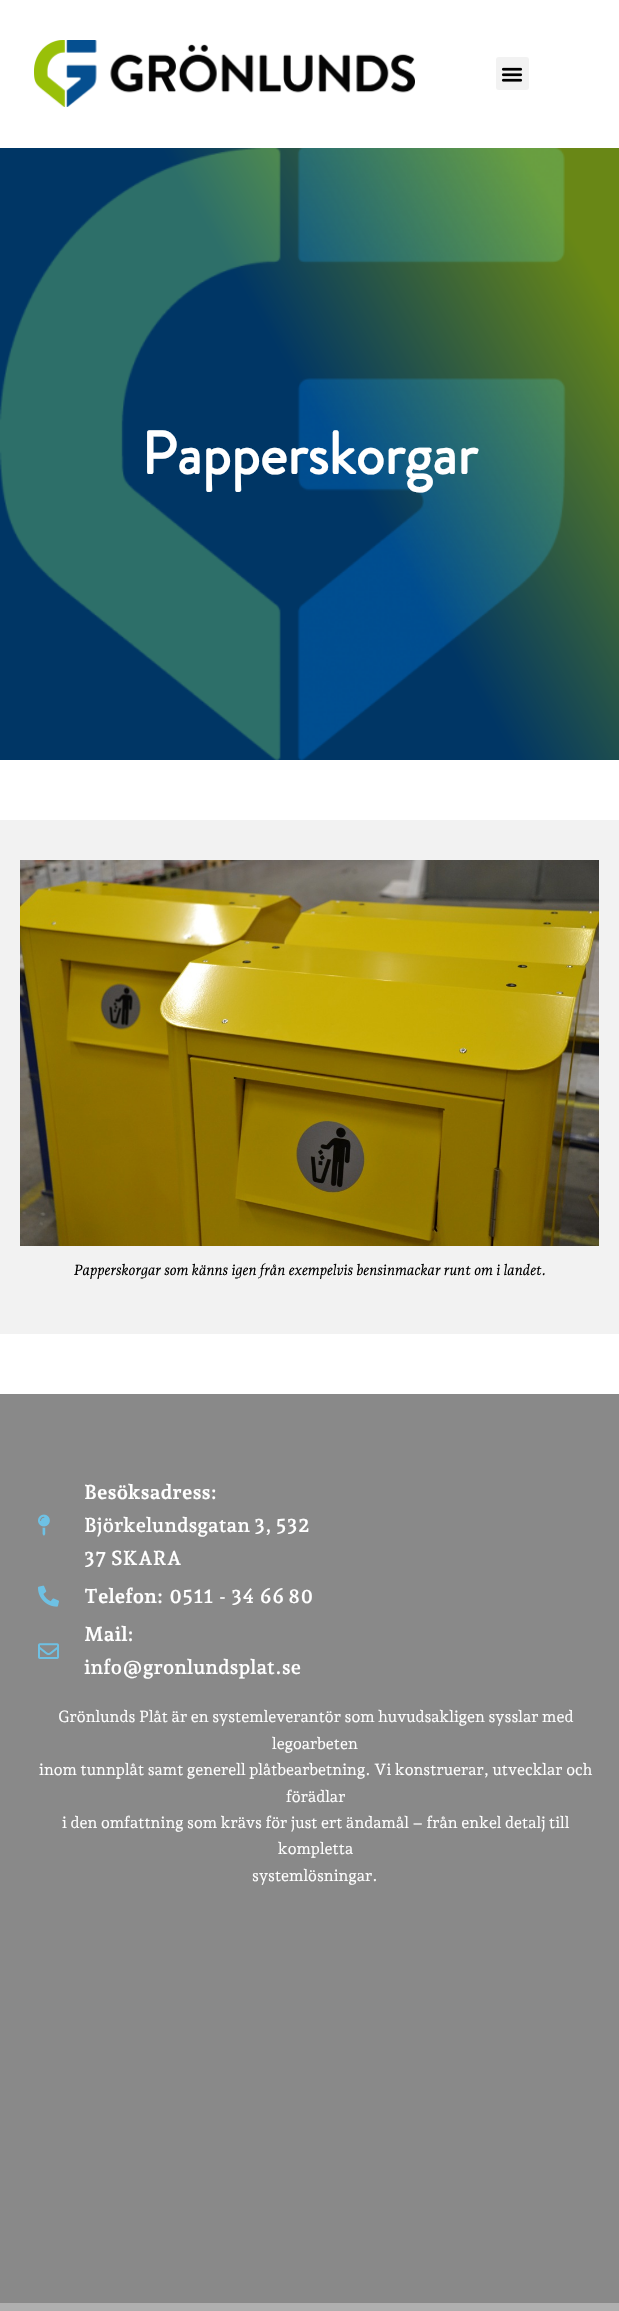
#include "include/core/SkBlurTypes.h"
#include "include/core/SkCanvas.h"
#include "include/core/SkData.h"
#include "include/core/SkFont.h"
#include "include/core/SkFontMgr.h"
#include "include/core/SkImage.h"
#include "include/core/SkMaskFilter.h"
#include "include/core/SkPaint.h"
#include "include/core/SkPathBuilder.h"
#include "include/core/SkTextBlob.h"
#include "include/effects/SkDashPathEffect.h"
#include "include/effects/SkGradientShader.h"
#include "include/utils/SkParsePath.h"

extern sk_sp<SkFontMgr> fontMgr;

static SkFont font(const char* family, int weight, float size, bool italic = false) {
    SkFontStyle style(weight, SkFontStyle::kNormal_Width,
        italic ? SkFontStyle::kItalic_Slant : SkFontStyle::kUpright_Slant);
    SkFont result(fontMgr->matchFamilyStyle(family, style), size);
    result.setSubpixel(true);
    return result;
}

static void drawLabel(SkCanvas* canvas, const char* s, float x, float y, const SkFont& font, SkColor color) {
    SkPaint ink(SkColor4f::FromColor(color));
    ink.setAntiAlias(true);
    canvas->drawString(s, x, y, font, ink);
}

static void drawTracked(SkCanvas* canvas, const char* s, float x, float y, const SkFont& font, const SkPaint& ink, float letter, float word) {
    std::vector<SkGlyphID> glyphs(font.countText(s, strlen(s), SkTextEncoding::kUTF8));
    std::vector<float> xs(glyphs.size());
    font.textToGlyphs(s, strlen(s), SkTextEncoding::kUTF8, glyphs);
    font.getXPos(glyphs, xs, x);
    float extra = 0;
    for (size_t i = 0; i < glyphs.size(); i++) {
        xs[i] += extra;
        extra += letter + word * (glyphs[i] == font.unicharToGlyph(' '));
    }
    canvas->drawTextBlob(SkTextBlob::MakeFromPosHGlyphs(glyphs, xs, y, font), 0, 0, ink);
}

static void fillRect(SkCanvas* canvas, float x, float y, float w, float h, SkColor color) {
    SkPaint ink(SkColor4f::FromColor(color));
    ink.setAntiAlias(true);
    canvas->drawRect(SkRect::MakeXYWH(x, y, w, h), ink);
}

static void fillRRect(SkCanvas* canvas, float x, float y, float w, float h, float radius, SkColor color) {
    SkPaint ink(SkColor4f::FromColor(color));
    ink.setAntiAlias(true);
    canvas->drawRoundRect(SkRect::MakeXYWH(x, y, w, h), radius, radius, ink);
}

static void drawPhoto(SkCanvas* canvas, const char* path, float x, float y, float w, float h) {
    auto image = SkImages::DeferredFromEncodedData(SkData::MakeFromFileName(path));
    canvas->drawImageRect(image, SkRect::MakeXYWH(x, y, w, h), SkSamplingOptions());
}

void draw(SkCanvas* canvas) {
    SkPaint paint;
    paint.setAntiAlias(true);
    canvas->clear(0xFFFFFFFF);
    drawPhoto(canvas, "assets/img1.png", 34, 40, 381, 67);
    fillRRect(canvas, 496, 57, 33, 33, 3, 0xFFF2F2F2);
    drawPhoto(canvas, "assets/img2.png", 501, 67, 22, 15);
    fillRect(canvas, 0, 148, 619, 612, 0xFF000000);
    drawPhoto(canvas, "assets/img3.png", 0, 148, 566, 612);
    {
        const SkColor colors[] = {0xB3004D90, 0xB395C11F};
        const float stops[] = {0.53f, 0.9f};
        const SkPoint ends[] = {{-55, 665}, {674, 243}};
        paint.setShader(SkGradientShader::MakeLinear(ends, colors, stops, 2, SkTileMode::kClamp));
        paint.setAlpha(255);
    }
    canvas->drawRect(SkRect::MakeXYWH(0, 148, 619, 612), paint);
    SkFont font1 = font("Brandon Grotesque", 700, 60);
    drawLabel(canvas, "Papperskorgar", 141, 474, font1, 0xFFFFFFFF);
    fillRect(canvas, 0, 820, 619, 514, 0xFFF2F2F2);
    drawPhoto(canvas, "assets/img4.png", 20, 860, 579, 386);
    SkFont font2 = font("Andada Pro", 400, 14.6f, true);
    drawLabel(canvas, "Papperskorgar som känns igen från exempelvis bensinmackar runt om i landet.", 74, 1275, font2, 0xFF000000);
    fillRect(canvas, 0, 1394, 619, 909, 0xFF898989);
    drawPhoto(canvas, "assets/img5.png", 38, 1514, 12, 22);
    SkFont font3 = font("Andada Pro", 700, 20);
    drawLabel(canvas, "Besöksadress:", 84, 1499, font3, 0xFFFFFFFF);
    SkFont font4 = font("Andada Pro", 600, 20);
    drawLabel(canvas, "Björkelundsgatan 3, 532", 84, 1532, font4, 0xFFFFFFFF);
    drawLabel(canvas, "37 SKARA", 84, 1565, font4, 0xFFFFFFFF);
    drawPhoto(canvas, "assets/img6.png", 38, 1585, 21, 22);
    drawLabel(canvas, "Telefon:", 84, 1603, font3, 0xFFFFFFFF);
    paint.setShader(nullptr);
    paint.setColor(0xFFFFFFFF);
    drawTracked(canvas, "0511 - 34 66", 169, 1603, font4, paint, 0, 1);
    drawTracked(canvas, "80", 288, 1603, font4, paint, 0, 1);
    drawPhoto(canvas, "assets/img7.png", 38, 1643, 21, 16);
    drawLabel(canvas, "Mail:", 84, 1641, font3, 0xFFFFFFFF);
    drawLabel(canvas, "info@gronlundsplat.se", 84, 1674, font4, 0xFFFFFFFF);
    SkFont font5 = font("Andada Pro", 400, 16);
    drawLabel(canvas, "Grönlunds Plåt är en systemleverantör som huvudsakligen sysslar med", 58, 1722, font5, 0xFFFFFFFF);
    drawLabel(canvas, "legoarbeten", 272, 1749, font5, 0xFFFFFFFF);
    drawLabel(canvas, "inom tunnplåt samt generell plåtbearbetning. Vi konstruerar, utvecklar och", 39, 1775, font5, 0xFFFFFFFF);
    drawLabel(canvas, "förädlar", 286, 1802, font5, 0xFFFFFFFF);
    drawLabel(canvas, "i den omfattning som krävs för just ert ändamål – från enkel detalj till", 62, 1828, font5, 0xFFFFFFFF);
    drawLabel(canvas, "kompletta", 278, 1854, font5, 0xFFFFFFFF);
    drawLabel(canvas, "systemlösningar.", 252, 1881, font5, 0xFFFFFFFF);
    fillRect(canvas, 0, 2303, 619, 8, 0xFFAFAFAF);
}
